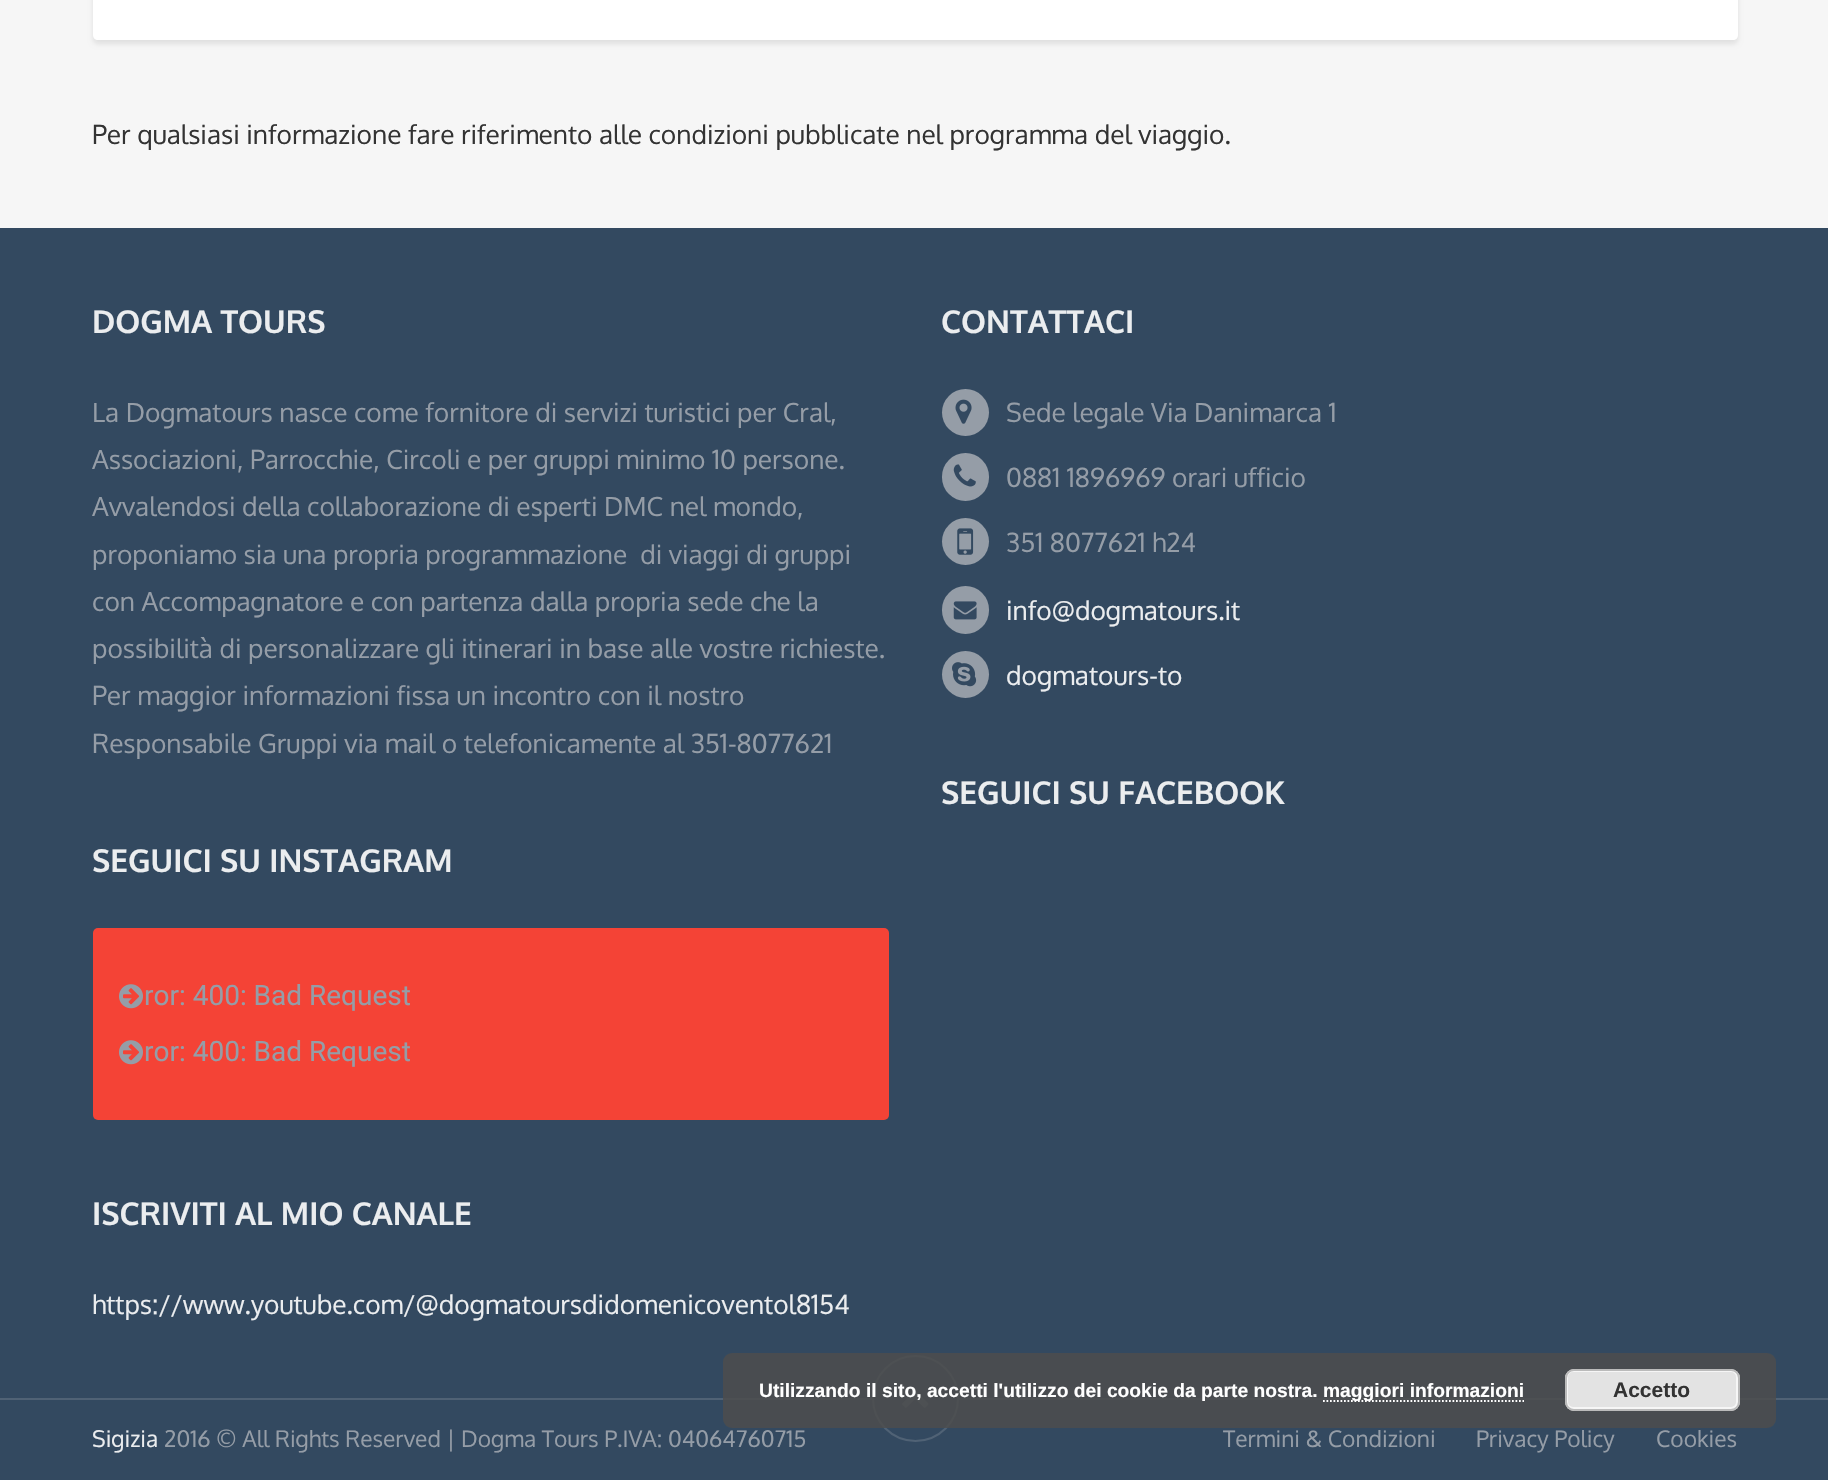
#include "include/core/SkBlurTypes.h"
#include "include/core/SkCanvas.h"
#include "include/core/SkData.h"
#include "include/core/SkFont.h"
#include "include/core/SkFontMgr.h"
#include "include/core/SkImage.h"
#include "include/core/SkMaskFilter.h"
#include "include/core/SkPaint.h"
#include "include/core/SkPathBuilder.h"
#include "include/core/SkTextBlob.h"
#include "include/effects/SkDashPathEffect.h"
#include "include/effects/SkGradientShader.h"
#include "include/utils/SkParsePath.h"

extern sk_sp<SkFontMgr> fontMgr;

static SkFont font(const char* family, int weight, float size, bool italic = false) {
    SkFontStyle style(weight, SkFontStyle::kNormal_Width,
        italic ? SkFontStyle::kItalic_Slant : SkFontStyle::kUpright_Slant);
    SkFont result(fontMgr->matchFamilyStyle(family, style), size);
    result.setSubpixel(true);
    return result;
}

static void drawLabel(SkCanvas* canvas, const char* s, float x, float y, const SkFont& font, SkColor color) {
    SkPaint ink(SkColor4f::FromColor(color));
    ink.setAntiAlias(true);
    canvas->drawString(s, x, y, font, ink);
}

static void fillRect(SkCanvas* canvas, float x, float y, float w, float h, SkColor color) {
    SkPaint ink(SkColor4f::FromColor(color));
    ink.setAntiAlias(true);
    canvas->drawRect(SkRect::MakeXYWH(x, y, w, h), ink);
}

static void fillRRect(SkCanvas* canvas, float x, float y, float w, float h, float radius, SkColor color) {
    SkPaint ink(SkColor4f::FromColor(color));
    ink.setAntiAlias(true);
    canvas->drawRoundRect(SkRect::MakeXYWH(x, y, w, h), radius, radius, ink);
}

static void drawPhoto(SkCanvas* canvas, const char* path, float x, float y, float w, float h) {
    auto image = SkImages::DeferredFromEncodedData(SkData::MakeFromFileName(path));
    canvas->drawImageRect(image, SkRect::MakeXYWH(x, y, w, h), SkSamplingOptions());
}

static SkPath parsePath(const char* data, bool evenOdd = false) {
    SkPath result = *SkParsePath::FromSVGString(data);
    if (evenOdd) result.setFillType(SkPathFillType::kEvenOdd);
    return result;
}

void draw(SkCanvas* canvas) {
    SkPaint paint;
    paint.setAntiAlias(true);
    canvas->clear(0xFFF6F6F6);
    paint.setColor(0x17000000);
    paint.setMaskFilter(SkMaskFilter::MakeBlur(kNormal_SkBlurStyle, 2.5f));
    canvas->drawRoundRect(SkRect::MakeXYWH(93, -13, 1645, 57), 5, 5, paint);
    paint.setMaskFilter(nullptr);
    paint.setColor(0xFFFFFFFF);
    canvas->drawPath(parsePath("M93-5H1738V35C1738 38 1736 40 1733 40H98C95 40 93 38 93 35Z"), paint);
    SkFont font1 = font("Oxygen", 400, 26.25f);
    drawLabel(canvas, "Per qualsiasi informazione fare riferimento alle condizioni pubblicate nel programma del viaggio.", 92, 144, font1, 0xFF333333);
    fillRect(canvas, 0, 228, 1828, 1252, 0xFF334960);
    SkFont font2 = font("Oxygen", 700, 31.5f);
    drawLabel(canvas, "DOGMA TOURS", 92, 333, font2, 0xFFEBEDEF);
    drawLabel(canvas, "La Dogmatours nasce come fornitore di servizi turistici per Cral,", 92, 422, font1, 0xFF959DA7);
    drawLabel(canvas, "Associazioni, Parrocchie, Circoli e per gruppi minimo 10 persone.", 92, 469, font1, 0xFF959DA7);
    drawLabel(canvas, "Avvalendosi della collaborazione di esperti DMC nel mondo,", 92, 516, font1, 0xFF959DA7);
    drawLabel(canvas, "proponiamo sia una propria programmazione  di viaggi di gruppi", 92, 564, font1, 0xFF959DA7);
    drawLabel(canvas, "con Accompagnatore e con partenza dalla propria sede che la", 92, 611, font1, 0xFF959DA7);
    drawLabel(canvas, "possibilità di personalizzare gli itinerari in base alle vostre richieste.", 92, 658, font1, 0xFF959DA7);
    drawLabel(canvas, "Per maggior informazioni fissa un incontro con il nostro", 92, 705, font1, 0xFF959DA7);
    drawLabel(canvas, "Responsabile Gruppi via mail o telefonicamente al 351-8077621", 92, 753, font1, 0xFF959DA7);
    drawLabel(canvas, "SEGUICI SU INSTAGRAM", 92, 872, font2, 0xFFEBEDEF);
    fillRRect(canvas, 93, 928, 796, 192, 5, 0xFFF44336);
    drawPhoto(canvas, "assets/img1.png", 119, 984, 24, 25);
    SkFont font3 = font("Roboto", 400, 28);
    drawLabel(canvas, "ror: 400: Bad Request", 144, 1005, font3, 0xFF959DA7);
    drawPhoto(canvas, "assets/img1.png", 119, 1040, 24, 25);
    drawLabel(canvas, "ror: 400: Bad Request", 144, 1061, font3, 0xFF959DA7);
    drawLabel(canvas, "ISCRIVITI AL MIO CANALE", 92, 1225, font2, 0xFFEBEDEF);
    drawLabel(canvas, "https://www.youtube.com/@dogmatoursdidomenicoventol8154", 92, 1314, font1, 0xFFEBEDEF);
    drawLabel(canvas, "CONTATTACI", 941, 333, font2, 0xFFEBEDEF);
    paint.setColor(0xFF959DA7);
    canvas->drawCircle(965.5f, 412.5f, 23.5f, paint);
    drawPhoto(canvas, "assets/img2.png", 955, 399, 17, 25);
    drawLabel(canvas, "Sede legale Via Danimarca 1", 1006, 422, font1, 0xFF959DA7);
    fillRRect(canvas, 942, 453, 47, 48, 23.5f, 0xFF959DA7);
    drawPhoto(canvas, "assets/img3.png", 953, 464, 23, 23);
    drawLabel(canvas, "0881 1896969 orari ufficio", 1006, 487, font1, 0xFF959DA7);
    canvas->drawCircle(965.5f, 541.5f, 23.5f, paint);
    drawPhoto(canvas, "assets/img4.png", 957, 528, 17, 27);
    drawLabel(canvas, "351 8077621 h24", 1006, 552, font1, 0xFF959DA7);
    fillRRect(canvas, 942, 586, 47, 48, 23.5f, 0xFF959DA7);
    drawPhoto(canvas, "assets/img5.png", 953, 601, 24, 19);
    drawLabel(canvas, "info@dogmatours.it", 1006, 620, font1, 0xFFEBEDEF);
    canvas->drawCircle(965.5f, 674.5f, 23.5f, paint);
    drawPhoto(canvas, "assets/img6.png", 952, 662, 25, 25);
    drawLabel(canvas, "dogmatours-to", 1006, 685, font1, 0xFFEBEDEF);
    drawLabel(canvas, "SEGUICI SU FACEBOOK", 941, 804, font2, 0xFFEBEDEF);
    fillRect(canvas, 0, 1398, 1828, 2, 0xFF506275);
    paint.setColor(0xFF334960);
    canvas->drawCircle(915.5f, 1398.5f, 42.5f, paint);
    paint.setStroke(true);
    paint.setStrokeWidth(2);
    paint.setColor(0xFF506275);
    canvas->drawCircle(915.5f, 1398.5f, 42.5f, paint);
    drawPhoto(canvas, "assets/img7.png", 902, 1391, 27, 17);
    SkFont font4 = font("Oxygen", 400, 22.75f);
    drawLabel(canvas, "Sigizia", 92, 1447, font4, 0xFFEBEDEF);
    drawLabel(canvas, "2016 © All Rights Reserved | Dogma Tours P.IVA: 04064760715", 164, 1447, font4, 0xFF959DA7);
    drawLabel(canvas, "Termini & Condizioni", 1223, 1447, font4, 0xFF959DA7);
    drawLabel(canvas, "Privacy Policy", 1476, 1447, font4, 0xFF959DA7);
    drawLabel(canvas, "Cookies", 1656, 1447, font4, 0xFF959DA7);
    fillRRect(canvas, 723, 1353, 1053, 75, 9, 0xD94C4C4C);
    SkFont font5 = font("Liberation Sans", 700, 19.25f);
    drawLabel(canvas, "Utilizzando il sito, accetti l'utilizzo dei cookie da parte nostra.", 759, 1397, font5, 0xFFFFFFFF);
    paint.setStrokeWidth(1.8f);
    paint.setColor(0xFFFFFFFF);
    paint.setPathEffect(SkDashPathEffect::Make({{1.75f, 1.75f}}, 0));
    canvas->drawPath(parsePath("M1323 1401H1524"), paint);
    paint.setPathEffect(nullptr);
    drawLabel(canvas, "maggiori informazioni", 1323, 1397, font5, 0xFFFFFFFF);
    fillRRect(canvas, 1565, 1369, 175, 42, 9, 0xFFE3E3E3);
    paint.setStrokeWidth(2);
    paint.setColor(0xFFF6F6F6);
    canvas->drawRoundRect(SkRect::MakeXYWH(1567, 1371, 170, 37), 6, 6, paint);
    paint.setColor(0xFFBBBBBB);
    canvas->drawRoundRect(SkRect::MakeXYWH(1566, 1370, 173, 40), 8, 8, paint);
    SkFont font6 = font("Liberation Sans", 700, 21);
    drawLabel(canvas, "Accetto", 1613, 1397, font6, 0xFF333333);
}
